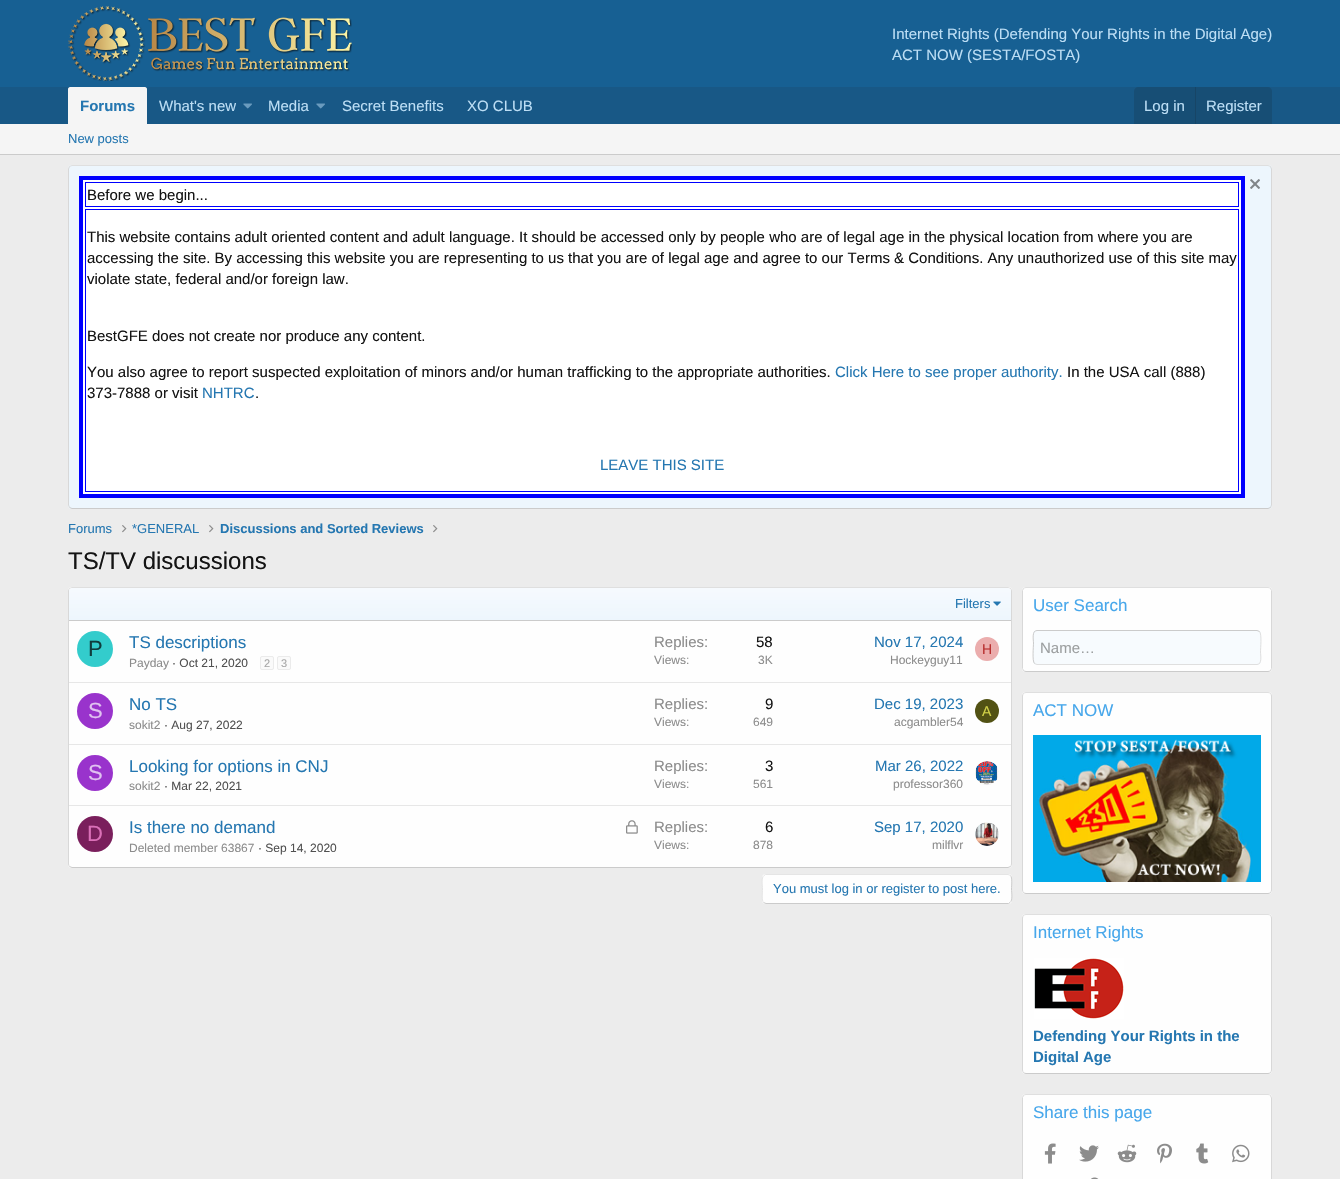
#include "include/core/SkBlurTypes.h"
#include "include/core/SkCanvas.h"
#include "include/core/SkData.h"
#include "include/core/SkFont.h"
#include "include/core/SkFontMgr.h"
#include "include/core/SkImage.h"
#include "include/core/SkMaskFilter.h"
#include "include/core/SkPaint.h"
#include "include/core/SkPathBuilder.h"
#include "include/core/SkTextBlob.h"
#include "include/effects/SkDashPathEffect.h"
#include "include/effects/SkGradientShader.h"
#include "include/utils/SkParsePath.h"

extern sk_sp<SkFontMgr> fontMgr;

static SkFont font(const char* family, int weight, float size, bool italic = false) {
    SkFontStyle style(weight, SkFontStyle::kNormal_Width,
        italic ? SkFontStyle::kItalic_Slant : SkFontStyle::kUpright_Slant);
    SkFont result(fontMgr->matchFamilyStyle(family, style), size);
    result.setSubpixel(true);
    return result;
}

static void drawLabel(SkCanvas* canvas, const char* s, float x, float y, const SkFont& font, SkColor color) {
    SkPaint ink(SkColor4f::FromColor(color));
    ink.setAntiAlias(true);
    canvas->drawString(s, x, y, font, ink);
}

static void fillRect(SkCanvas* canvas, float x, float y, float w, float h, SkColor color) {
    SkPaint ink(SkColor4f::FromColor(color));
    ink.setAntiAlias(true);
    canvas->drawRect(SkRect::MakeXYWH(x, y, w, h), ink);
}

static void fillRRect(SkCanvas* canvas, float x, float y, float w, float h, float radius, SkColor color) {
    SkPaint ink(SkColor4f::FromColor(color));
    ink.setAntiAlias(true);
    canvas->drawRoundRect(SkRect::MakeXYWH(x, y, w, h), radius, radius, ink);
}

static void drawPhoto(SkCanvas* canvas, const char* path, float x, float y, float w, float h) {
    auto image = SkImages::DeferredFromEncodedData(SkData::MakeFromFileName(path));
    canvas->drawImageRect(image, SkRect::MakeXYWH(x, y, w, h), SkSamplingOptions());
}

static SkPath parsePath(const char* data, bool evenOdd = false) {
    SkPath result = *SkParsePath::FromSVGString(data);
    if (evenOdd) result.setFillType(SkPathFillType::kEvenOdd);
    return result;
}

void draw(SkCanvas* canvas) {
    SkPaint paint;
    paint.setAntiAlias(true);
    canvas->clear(0xFFECECEC);
    fillRect(canvas, 0, 0, 1340, 87, 0xFF176093);
    drawPhoto(canvas, "assets/img1.png", 68, 6, 284, 75);
    SkFont font1 = font("Liberation Sans", 400, 15);
    drawLabel(canvas, "Internet Rights (Defending Your Rights in the Digital Age)", 892, 39, font1, 0xFFBCDEF5);
    drawLabel(canvas, "ACT NOW (SESTA/FOSTA)", 892, 60, font1, 0xFFBCDEF5);
    fillRect(canvas, 0, 87, 1340, 37, 0xFF185886);
    paint.setColor(0xFFF5F5F5);
    canvas->drawPath(parsePath("M70 87H145C146 87 147 88 147 89V124H68V89C68 88 69 87 70 87Z"), paint);
    SkFont font2 = font("Liberation Sans", 700, 15);
    drawLabel(canvas, "Forums", 80, 111, font2, 0xFF2577B1);
    drawLabel(canvas, "What's new", 159, 111, font1, 0xFFBCDEF5);
    drawPhoto(canvas, "assets/img2.png", 243, 103, 9, 6);
    drawLabel(canvas, "Media", 268, 111, font1, 0xFFBCDEF5);
    drawPhoto(canvas, "assets/img2.png", 316, 103, 9, 6);
    drawLabel(canvas, "Secret Benefits", 342, 111, font1, 0xFFBCDEF5);
    drawLabel(canvas, "XO CLUB", 467, 111, font1, 0xFFBCDEF5);
    paint.setColor(0xFF174E75);
    canvas->drawPath(parsePath("M1138 87H1268C1270 87 1272 89 1272 91V124H1134V91C1134 89 1136 87 1138 87Z"), paint);
    drawLabel(canvas, "Log in", 1144, 111, font1, 0xFFBCDEF5);
    fillRect(canvas, 1195, 87, 1, 37, 0xFF174566);
    drawLabel(canvas, "Register", 1206, 111, font1, 0xFFBCDEF5);
    fillRect(canvas, 0, 124, 1340, 30, 0xFFF5F5F5);
    fillRect(canvas, 0, 154, 1340, 1, 0xFFCBCBCB);
    SkFont font3 = font("Liberation Sans", 400, 13);
    drawLabel(canvas, "New posts", 68, 143, font3, 0xFF2577B1);
    fillRRect(canvas, 68, 165, 1204, 344, 4, 0xFFEDF6FD);
    paint.setStroke(true);
    paint.setStrokeWidth(1);
    paint.setColor(0xFFDFDFDF);
    canvas->drawPath(parsePath("M69.5 166.5L72 165.5H1268L1270.5 166.5"), paint);
    paint.setColor(0xFFD8D8D8);
    canvas->drawPath(parsePath("M1270.5 166.5L1271.5 169V505L1270.5 507.5"), paint);
    paint.setColor(0xFFCBCBCB);
    canvas->drawPath(parsePath("M1270.5 507.5L1268 508.5H72L69.5 507.5"), paint);
    paint.setColor(0xFFD8D8D8);
    canvas->drawPath(parsePath("M69.5 507.5L68.5 505V169L69.5 166.5"), paint);
    drawPhoto(canvas, "assets/img3.png", 1250, 179, 10, 10);
    paint.setStroke(false);
    paint.setColor(0xFFFFFFFF);
    canvas->drawRect(SkRect::MakeXYWH(81, 178, 1162, 318), paint);
    paint.setStroke(true);
    paint.setStrokeWidth(4);
    paint.setColor(0xFF0000FF);
    canvas->drawRect(SkRect::MakeXYWH(81, 178, 1162, 318), paint);
    paint.setStrokeWidth(1);
    canvas->drawRect(SkRect::MakeXYWH(85.5f, 182.5f, 1153, 24), paint);
    drawLabel(canvas, "Before we begin...", 87, 200, font1, 0xFF141414);
    canvas->drawRect(SkRect::MakeXYWH(85.5f, 209.5f, 1153, 282), paint);
    drawLabel(canvas, "This website contains adult oriented content and adult language. It should be accessed only by people who are of legal age in the physical location from where you are", 87, 242, font1, 0xFF141414);
    drawLabel(canvas, "accessing the site. By accessing this website you are representing to us that you are of legal age and agree to our Terms & Conditions. Any unauthorized use of this site may", 87, 263, font1, 0xFF141414);
    drawLabel(canvas, "violate state, federal and/or foreign law.", 87, 284, font1, 0xFF141414);
    drawLabel(canvas, "BestGFE does not create nor produce any content.", 87, 341, font1, 0xFF141414);
    drawLabel(canvas, "You also agree to report suspected exploitation of minors and/or human trafficking to the appropriate authorities.", 87, 377, font1, 0xFF141414);
    drawLabel(canvas, "Click Here to see proper authority.", 835, 377, font1, 0xFF2577B1);
    drawLabel(canvas, "In the USA call (888)", 1067, 377, font1, 0xFF141414);
    drawLabel(canvas, "373-7888 or visit", 87, 398, font1, 0xFF141414);
    drawLabel(canvas, "NHTRC", 202, 398, font1, 0xFF2577B1);
    drawLabel(canvas, ".", 255, 398, font1, 0xFF141414);
    drawLabel(canvas, "LEAVE THIS SITE", 600, 470, font1, 0xFF2577B1);
    drawLabel(canvas, "Forums", 68, 533, font3, 0xFF2577B1);
    drawPhoto(canvas, "assets/img4.png", 122, 525, 5, 8);
    drawLabel(canvas, "*GENERAL", 132, 533, font3, 0xFF2577B1);
    drawPhoto(canvas, "assets/img4.png", 209, 525, 5, 8);
    SkFont font4 = font("Liberation Sans", 700, 13);
    drawLabel(canvas, "Discussions and Sorted Reviews", 220, 533, font4, 0xFF2577B1);
    drawPhoto(canvas, "assets/img4.png", 433, 525, 5, 8);
    SkFont font5 = font("Liberation Sans", 400, 24);
    drawLabel(canvas, "TS/TV discussions", 68, 569, font5, 0xFF141414);
    fillRRect(canvas, 68, 587, 944, 281, 4, 0xFFFEFEFE);
    paint.setColor(0xFFDFDFDF);
    canvas->drawPath(parsePath("M69.5 588.5L72 587.5H1008L1010.5 588.5"), paint);
    paint.setColor(0xFFD8D8D8);
    canvas->drawPath(parsePath("M1010.5 588.5C1011 589 1011.5 590 1011.5 591V864C1011.5 865 1011 866 1010.5 866.5"), paint);
    paint.setColor(0xFFCBCBCB);
    canvas->drawPath(parsePath("M1010.5 866.5L1008 867.5H72L69.5 866.5"), paint);
    paint.setColor(0xFFD8D8D8);
    canvas->drawPath(parsePath("M69.5 866.5C69 866 68.5 865 68.5 864V591C68.5 590 69 589 69.5 588.5"), paint);
    paint.setStroke(false);
    {
        const SkColor colors[] = {0xFFEDF6FD, 0xFFF6FAFE};
        const float stops[] = {0, 1};
        const SkPoint ends[] = {{540, 620}, {540, 588}};
        paint.setShader(SkGradientShader::MakeLinear(ends, colors, stops, 2, SkTileMode::kClamp));
        paint.setAlpha(255);
    }
    canvas->drawPath(parsePath("M72 588H1008C1009.5 588 1011 589.5 1011 591V620H69V591C69 589.5 70.5 588 72 588Z"), paint);
    fillRect(canvas, 69, 620, 942, 1, 0xFFCBCBCB);
    drawLabel(canvas, "Filters", 955, 608, font3, 0xFF2577B1);
    drawPhoto(canvas, "assets/img5.png", 993, 601, 8, 5);
    paint.setShader(nullptr);
    paint.setColor(0xFF33CCCC);
    canvas->drawCircle(95, 649, 18, paint);
    SkFont font6 = font("Liberation Sans", 400, 22);
    drawLabel(canvas, "P", 88, 656, font6, 0xFF0F3D3D);
    SkFont font7 = font("Liberation Sans", 400, 17);
    drawLabel(canvas, "TS descriptions", 129, 648, font7, 0xFF2577B1);
    SkFont font8 = font("Liberation Sans", 400, 12);
    drawLabel(canvas, "Payday", 129, 667, font8, 0xFF8C8C8C);
    drawLabel(canvas, "· Oct 21, 2020", 172, 667, font8, 0xFF505050);
    paint.setColor(0xFFFAFAFA);
    canvas->drawRoundRect(SkRect::MakeXYWH(260.5f, 656.5f, 13, 13), 1.5f, 1.5f, paint);
    paint.setStroke(true);
    paint.setColor(0xFFEBEBEB);
    canvas->drawRoundRect(SkRect::MakeXYWH(260.5f, 656.5f, 13, 13), 1.5f, 1.5f, paint);
    SkFont font9 = font("Liberation Sans", 400, 11);
    drawLabel(canvas, "2", 264, 667, font9, 0xFFA7A7A7);
    paint.setStroke(false);
    paint.setColor(0xFFFAFAFA);
    canvas->drawRoundRect(SkRect::MakeXYWH(277.5f, 656.5f, 13, 13), 1.5f, 1.5f, paint);
    paint.setStroke(true);
    paint.setColor(0xFFEBEBEB);
    canvas->drawRoundRect(SkRect::MakeXYWH(277.5f, 656.5f, 13, 13), 1.5f, 1.5f, paint);
    drawLabel(canvas, "3", 281, 667, font9, 0xFFA7A7A7);
    drawLabel(canvas, "Replies:", 654, 647, font1, 0xFF8C8C8C);
    drawLabel(canvas, "58", 756, 647, font1, 0xFF141414);
    drawLabel(canvas, "Views:", 654, 664, font8, 0xFF8C8C8C);
    drawLabel(canvas, "3K", 758, 664, font8, 0xFF8C8C8C);
    drawLabel(canvas, "Nov 17, 2024", 874, 647, font1, 0xFF2577B1);
    drawLabel(canvas, "Hockeyguy11", 890, 664, font8, 0xFF8C8C8C);
    paint.setStroke(false);
    paint.setColor(0xFFEBADAD);
    canvas->drawCircle(987, 649, 12, paint);
    SkFont font10 = font("Liberation Sans", 400, 14);
    drawLabel(canvas, "H", 982, 654, font10, 0xFFB82E2E);
    fillRect(canvas, 69, 682, 942, 1, 0xFFE7E7E7);
    paint.setColor(0xFF9933CC);
    canvas->drawCircle(95, 711, 18, paint);
    drawLabel(canvas, "S", 88, 718, font6, 0xFFE0C2F0);
    drawLabel(canvas, "No TS", 129, 710, font7, 0xFF2577B1);
    drawLabel(canvas, "sokit2", 129, 729, font8, 0xFF8C8C8C);
    drawLabel(canvas, "· Aug 27, 2022", 164, 729, font8, 0xFF505050);
    drawLabel(canvas, "Replies:", 654, 709, font1, 0xFF8C8C8C);
    drawLabel(canvas, "9", 765, 709, font1, 0xFF141414);
    drawLabel(canvas, "Views:", 654, 726, font8, 0xFF8C8C8C);
    drawLabel(canvas, "649", 753, 726, font8, 0xFF8C8C8C);
    drawLabel(canvas, "Dec 19, 2023", 874, 709, font1, 0xFF2577B1);
    drawLabel(canvas, "acgambler54", 894, 726, font8, 0xFF8C8C8C);
    paint.setColor(0xFF525214);
    canvas->drawCircle(987, 711, 12, paint);
    drawLabel(canvas, "A", 982, 716, font10, 0xFFD1D147);
    fillRect(canvas, 69, 744, 942, 1, 0xFFE7E7E7);
    paint.setColor(0xFF9933CC);
    canvas->drawCircle(95, 773, 18, paint);
    drawLabel(canvas, "S", 88, 780, font6, 0xFFE0C2F0);
    drawLabel(canvas, "Looking for options in CNJ", 129, 772, font7, 0xFF2577B1);
    drawLabel(canvas, "sokit2", 129, 790, font8, 0xFF8C8C8C);
    drawLabel(canvas, "· Mar 22, 2021", 164, 790, font8, 0xFF505050);
    drawLabel(canvas, "Replies:", 654, 771, font1, 0xFF8C8C8C);
    drawLabel(canvas, "3", 765, 771, font1, 0xFF141414);
    drawLabel(canvas, "Views:", 654, 788, font8, 0xFF8C8C8C);
    drawLabel(canvas, "561", 753, 788, font8, 0xFF8C8C8C);
    drawLabel(canvas, "Mar 26, 2022", 875, 771, font1, 0xFF2577B1);
    drawLabel(canvas, "professor360", 893, 788, font8, 0xFF8C8C8C);
    drawPhoto(canvas, "assets/img6.png", 975, 761, 24, 24);
    fillRect(canvas, 69, 805, 942, 1, 0xFFE7E7E7);
    paint.setColor(0xFF7A1F5C);
    canvas->drawCircle(95, 834, 18, paint);
    drawLabel(canvas, "D", 87, 841, font6, 0xFFDB70B8);
    drawLabel(canvas, "Is there no demand", 129, 833, font7, 0xFF2577B1);
    drawPhoto(canvas, "assets/img7.png", 626, 820, 12, 14);
    drawLabel(canvas, "Deleted member 63867", 129, 852, font8, 0xFF8C8C8C);
    drawLabel(canvas, "· Sep 14, 2020", 258, 852, font8, 0xFF505050);
    drawLabel(canvas, "Replies:", 654, 832, font1, 0xFF8C8C8C);
    drawLabel(canvas, "6", 765, 832, font1, 0xFF141414);
    drawLabel(canvas, "Views:", 654, 849, font8, 0xFF8C8C8C);
    drawLabel(canvas, "878", 753, 849, font8, 0xFF8C8C8C);
    drawLabel(canvas, "Sep 17, 2020", 874, 832, font1, 0xFF2577B1);
    drawLabel(canvas, "milflvr", 932, 849, font8, 0xFF8C8C8C);
    drawPhoto(canvas, "assets/img8.png", 975, 822, 24, 24);
    fillRRect(canvas, 762, 874, 250, 30, 4, 0xFFFEFEFE);
    paint.setStroke(true);
    paint.setColor(0xFFCBCBCB);
    canvas->drawPath(parsePath("M1010.5 875.5C1012.5 877.5 1011.5 886 1011.5 889C1011.5 892 1013 900.5 1010 902.5L1008.5 903.5H766L763.5 902.5"), paint);
    paint.setColor(0xFFE5E5E5);
    canvas->drawPath(parsePath("M763.5 902.5C761.5 900.5 762.5 892 762.5 889C762.5 886 761 877.5 764 875.5L765.5 874.5H1008L1010.5 875.5"), paint);
    drawLabel(canvas, "You must log in or register to post here.", 773, 893, font3, 0xFF2577B1);
    fillRRect(canvas, 1022, 587, 250, 85, 4, 0xFFFEFEFE);
    paint.setColor(0xFFDFDFDF);
    canvas->drawPath(parsePath("M1023.5 588.5C1024 588 1025 587.5 1026 587.5H1268C1269 587.5 1270 588 1270.5 588.5"), paint);
    paint.setColor(0xFFD8D8D8);
    canvas->drawPath(parsePath("M1270.5 588.5L1271.5 590.5V668.5L1270.5 670.5"), paint);
    paint.setColor(0xFFCBCBCB);
    canvas->drawPath(parsePath("M1270.5 670.5C1270 671 1269 671.5 1268 671.5H1026C1025 671.5 1024 671 1023.5 670.5"), paint);
    paint.setColor(0xFFD8D8D8);
    canvas->drawPath(parsePath("M1023.5 670.5L1022.5 668.5V590.5L1023.5 588.5"), paint);
    drawLabel(canvas, "User Search", 1033, 611, font7, 0xFF47A7EB);
    fillRRect(canvas, 1033, 630, 228, 35, 4, 0xFFF7FBFE);
    paint.setColor(0xFFDFDFDF);
    canvas->drawPath(parsePath("M1259.5 631.5C1262 634 1260.5 648.5 1260.5 652C1260.5 654.5 1262.5 664.5 1257 664.5H1037L1034.5 663.5"), paint);
    paint.setColor(0xFFCBCBCB);
    canvas->drawPath(parsePath("M1034.5 663.5C1032 661 1033.5 646.5 1033.5 643C1033.5 640.5 1031.5 630.5 1037 630.5H1257L1259.5 631.5"), paint);
    drawLabel(canvas, "Name…", 1040, 653, font1, 0xFF9C9FA0);
    fillRRect(canvas, 1022, 692, 250, 202, 4, 0xFFFEFEFE);
    paint.setColor(0xFFDFDFDF);
    canvas->drawPath(parsePath("M1023.5 693.5C1024 693 1025 692.5 1026 692.5H1268C1269 692.5 1270 693 1270.5 693.5"), paint);
    paint.setColor(0xFFD8D8D8);
    canvas->drawPath(parsePath("M1270.5 693.5C1271 694 1271.5 695 1271.5 696V890C1271.5 891 1271 892 1270.5 892.5"), paint);
    paint.setColor(0xFFCBCBCB);
    canvas->drawPath(parsePath("M1270.5 892.5C1270 893 1269 893.5 1268 893.5H1026C1025 893.5 1024 893 1023.5 892.5"), paint);
    paint.setColor(0xFFD8D8D8);
    canvas->drawPath(parsePath("M1023.5 892.5C1023 892 1022.5 891 1022.5 890V696C1022.5 695 1023 694 1023.5 693.5"), paint);
    drawLabel(canvas, "ACT NOW", 1033, 716, font7, 0xFF47A7EB);
    drawPhoto(canvas, "assets/img9.png", 1033, 735, 228, 147);
    fillRRect(canvas, 1022, 914, 250, 160, 4, 0xFFFEFEFE);
    paint.setColor(0xFFDFDFDF);
    canvas->drawPath(parsePath("M1023.5 915.5C1024 915 1025 914.5 1026 914.5H1268C1269 914.5 1270 915 1270.5 915.5"), paint);
    paint.setColor(0xFFD8D8D8);
    canvas->drawPath(parsePath("M1270.5 915.5C1271 916 1271.5 917 1271.5 918V1070C1271.5 1071 1271 1072 1270.5 1072.5"), paint);
    paint.setColor(0xFFCBCBCB);
    canvas->drawPath(parsePath("M1270.5 1072.5C1270 1073 1269 1073.5 1268 1073.5H1026C1025 1073.5 1024 1073 1023.5 1072.5"), paint);
    paint.setColor(0xFFD8D8D8);
    canvas->drawPath(parsePath("M1023.5 1072.5C1023 1072 1022.5 1071 1022.5 1070V918C1022.5 917 1023 916 1023.5 915.5"), paint);
    drawLabel(canvas, "Internet Rights", 1033, 938, font7, 0xFF47A7EB);
    drawPhoto(canvas, "assets/img10.png", 1034, 958, 90, 61);
    drawLabel(canvas, "Defending Your Rights in the", 1033, 1041, font2, 0xFF2577B1);
    drawLabel(canvas, "Digital Age", 1033, 1062, font2, 0xFF2577B1);
    fillRRect(canvas, 1022, 1094, 250, 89, 4, 0xFFFEFEFE);
    paint.setColor(0xFFDFDFDF);
    canvas->drawPath(parsePath("M1023.5 1095.5C1024 1095 1025 1094.5 1026 1094.5H1268C1269 1094.5 1270 1095 1270.5 1095.5"), paint);
    paint.setColor(0xFFD8D8D8);
    canvas->drawPath(parsePath("M1270.5 1095.5L1271.5 1098V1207.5L1270.5 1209.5"), paint);
    canvas->drawPath(parsePath("M1023.5 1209.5L1022.5 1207V1097.5L1023.5 1095.5"), paint);
    drawLabel(canvas, "Share this page", 1033, 1118, font7, 0xFF47A7EB);
    drawPhoto(canvas, "assets/img11.png", 1044, 1143, 12, 21);
    drawPhoto(canvas, "assets/img12.png", 1079, 1145, 20, 17);
    drawPhoto(canvas, "assets/img13.png", 1117, 1144, 20, 19);
    drawPhoto(canvas, "assets/img14.png", 1157, 1143, 15, 21);
    drawPhoto(canvas, "assets/img15.png", 1196, 1143, 13, 21);
    drawPhoto(canvas, "assets/img16.png", 1232, 1144, 18, 19);
    drawPhoto(canvas, "assets/img17.png", 1091, 1177, 8, 2);
}
